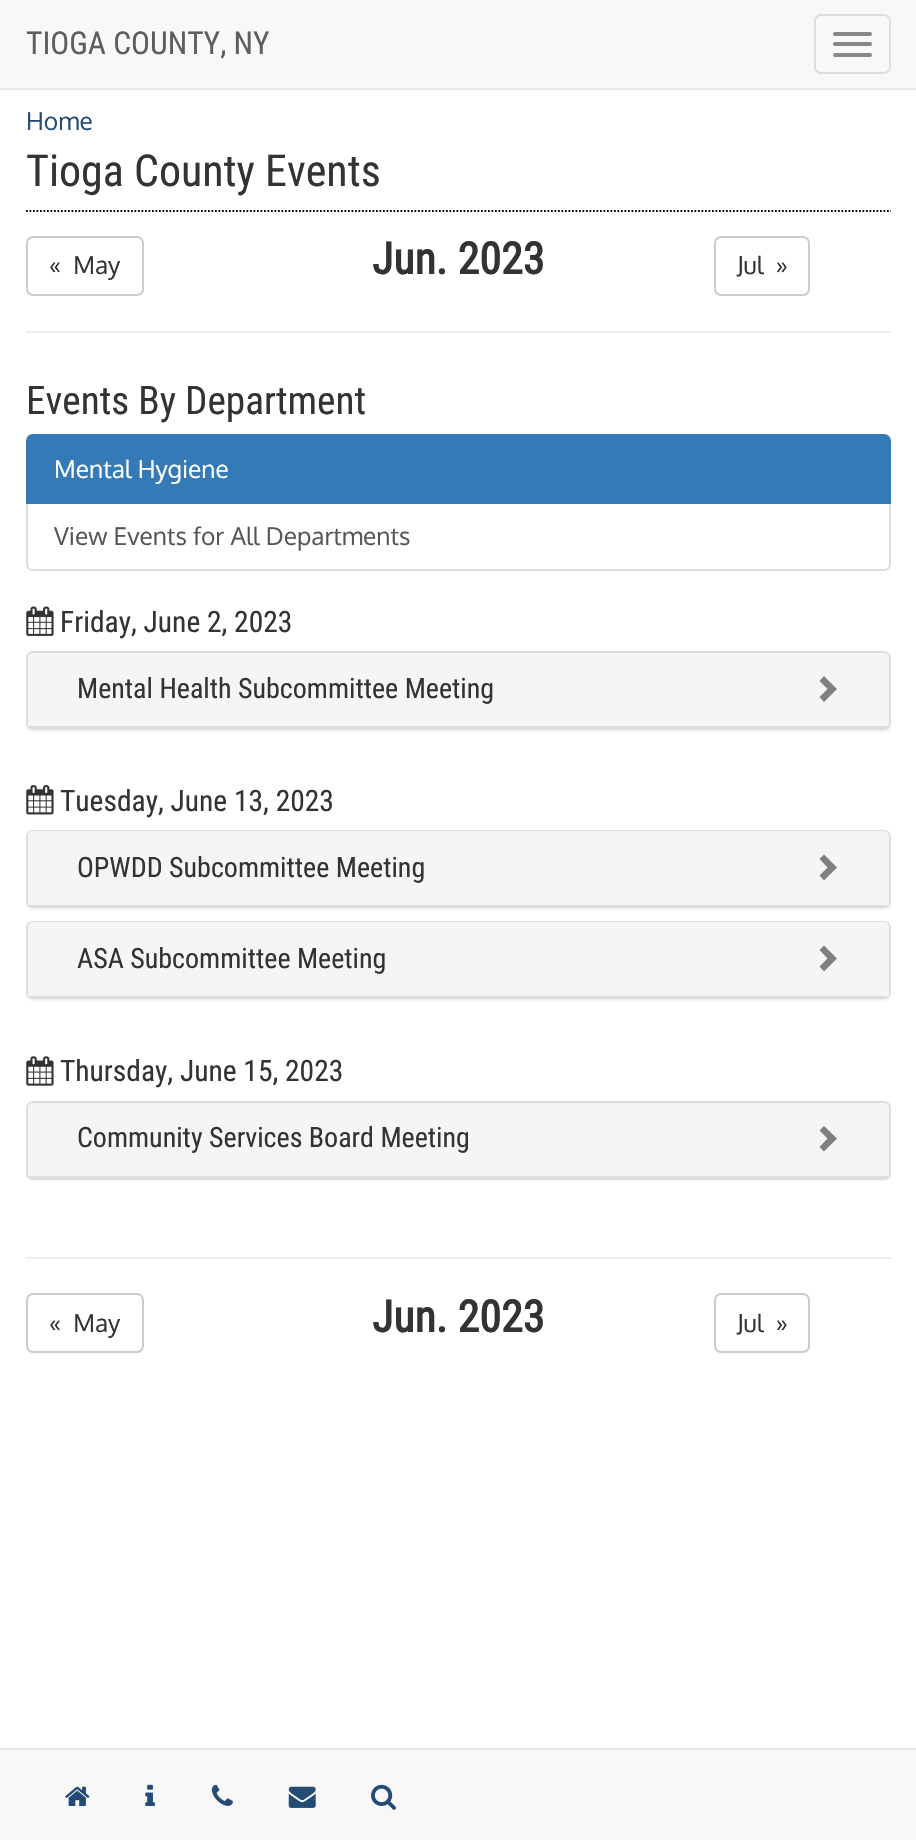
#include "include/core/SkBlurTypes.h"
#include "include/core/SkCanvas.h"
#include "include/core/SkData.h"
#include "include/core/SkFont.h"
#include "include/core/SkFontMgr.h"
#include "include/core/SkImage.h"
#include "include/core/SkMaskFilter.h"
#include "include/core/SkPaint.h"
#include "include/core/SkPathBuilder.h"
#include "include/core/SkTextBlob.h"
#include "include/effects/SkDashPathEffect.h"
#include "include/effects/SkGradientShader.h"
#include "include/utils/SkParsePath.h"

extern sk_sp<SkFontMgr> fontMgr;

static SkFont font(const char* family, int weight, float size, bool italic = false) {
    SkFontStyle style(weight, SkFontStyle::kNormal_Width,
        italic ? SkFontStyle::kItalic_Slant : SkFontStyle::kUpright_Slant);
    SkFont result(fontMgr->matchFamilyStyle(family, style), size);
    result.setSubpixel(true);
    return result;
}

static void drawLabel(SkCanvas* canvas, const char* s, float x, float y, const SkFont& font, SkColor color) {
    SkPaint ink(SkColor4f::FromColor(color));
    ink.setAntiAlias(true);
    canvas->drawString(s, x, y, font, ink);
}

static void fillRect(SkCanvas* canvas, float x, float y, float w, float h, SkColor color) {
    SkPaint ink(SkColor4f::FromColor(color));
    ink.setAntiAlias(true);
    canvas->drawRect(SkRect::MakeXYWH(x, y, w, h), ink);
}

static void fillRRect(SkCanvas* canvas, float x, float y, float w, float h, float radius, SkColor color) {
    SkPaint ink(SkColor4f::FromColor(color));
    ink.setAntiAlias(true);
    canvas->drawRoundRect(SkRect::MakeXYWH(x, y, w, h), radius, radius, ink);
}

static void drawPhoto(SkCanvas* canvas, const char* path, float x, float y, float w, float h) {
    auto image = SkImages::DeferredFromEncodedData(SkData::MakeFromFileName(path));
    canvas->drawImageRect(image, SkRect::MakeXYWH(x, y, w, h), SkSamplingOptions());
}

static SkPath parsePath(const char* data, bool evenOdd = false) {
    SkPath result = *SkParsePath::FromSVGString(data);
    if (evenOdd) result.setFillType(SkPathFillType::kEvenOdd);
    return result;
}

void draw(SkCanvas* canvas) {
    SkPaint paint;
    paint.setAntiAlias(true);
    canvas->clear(0xFFFFFFFF);
    fillRect(canvas, 0, 0, 916, 88, 0xFFF8F8F8);
    fillRect(canvas, 0, 88, 916, 2, 0xFFE7E7E7);
    SkFont font1 = font("Roboto Condensed", 400, 31.5f);
    drawLabel(canvas, "TIOGA COUNTY, NY", 26, 54, font1, 0xFF5E5E5E);
    paint.setStroke(true);
    paint.setStrokeWidth(2);
    paint.setColor(0xFFDDDDDD);
    canvas->drawRoundRect(SkRect::MakeXYWH(815, 15, 75, 58), 6, 6, paint);
    fillRRect(canvas, 833, 32, 39, 4, 2, 0xFF888888);
    fillRRect(canvas, 833, 42, 39, 4, 2, 0xFF888888);
    fillRRect(canvas, 833, 53, 39, 4, 2, 0xFF888888);
    SkFont font2 = font("Oxygen", 400, 24.5f);
    drawLabel(canvas, "Home", 26, 130, font2, 0xFF234B76);
    paint.setStrokeWidth(1.8f);
    paint.setColor(0xFF000000);
    paint.setPathEffect(SkDashPathEffect::Make({{1.75f, 1.75f}}, 0));
    canvas->drawPath(parsePath("M26 211H891"), paint);
    paint.setPathEffect(nullptr);
    SkFont font3 = font("Roboto Condensed", 400, 44);
    drawLabel(canvas, "Tioga County Events", 26, 186, font3, 0xFF333333);
    paint.setStrokeWidth(2);
    paint.setColor(0xFFCCCCCC);
    canvas->drawRoundRect(SkRect::MakeXYWH(27, 237, 116, 58), 6, 6, paint);
    drawLabel(canvas, "«  May", 49, 274, font2, 0xFF333333);
    SkFont font4 = font("Roboto Condensed", 700, 44);
    drawLabel(canvas, "Jun. 2023", 372, 274, font4, 0xFF333333);
    canvas->drawRoundRect(SkRect::MakeXYWH(715, 237, 94, 58), 6, 6, paint);
    drawLabel(canvas, "Jul  »", 737, 274, font2, 0xFF333333);
    fillRect(canvas, 26, 331, 865, 2, 0xFFEEEEEE);
    SkFont font5 = font("Roboto Condensed", 400, 39.25f);
    drawLabel(canvas, "Events By Department", 26, 414, font5, 0xFF333333);
    paint.setColor(0xFFDDDDDD);
    canvas->drawPath(parsePath("M27 503H890V564C890 567.5 887.5 570 884 570H33C29.5 570 27 567.5 27 564Z"), paint);
    paint.setStroke(false);
    paint.setColor(0xFF337AB7);
    canvas->drawPath(parsePath("M33 435H884C887.5 435 890 437.5 890 441V503H27V441C27 437.5 29.5 435 33 435Z"), paint);
    paint.setStroke(true);
    canvas->drawPath(parsePath("M33 435H884C887.5 435 890 437.5 890 441V503H27V441C27 437.5 29.5 435 33 435Z"), paint);
    drawLabel(canvas, "Mental Hygiene", 54, 478, font2, 0xFFFFFFFF);
    drawLabel(canvas, "View Events for All Departments", 54, 545, font2, 0xFF555555);
    drawPhoto(canvas, "assets/img1.png", 26, 606, 28, 30);
    SkFont font6 = font("Roboto Condensed", 400, 29.5f);
    drawLabel(canvas, "Friday, June 2, 2023", 60, 632, font6, 0xFF333333);
    paint.setStroke(false);
    paint.setColor(0x0D000000);
    paint.setMaskFilter(SkMaskFilter::MakeBlur(kNormal_SkBlurStyle, 1));
    canvas->drawRoundRect(SkRect::MakeXYWH(26, 653, 865, 79), 7, 7, paint);
    paint.setMaskFilter(nullptr);
    paint.setStroke(true);
    paint.setColor(0xFFDDDDDD);
    canvas->drawRoundRect(SkRect::MakeXYWH(27, 652, 863, 77), 6, 6, paint);
    paint.setStroke(false);
    paint.setColor(0xFFF5F5F5);
    canvas->drawPath(parsePath("M33 653H884C887 653 889 655 889 658V728H28V658C28 655 30 653 33 653Z"), paint);
    fillRect(canvas, 28, 726, 861, 2, 0xFFDDDDDD);
    SkFont font7 = font("Roboto Condensed", 400, 28);
    drawLabel(canvas, "Mental Health Subcommittee Meeting", 77, 698, font7, 0xFF333333);
    paint.setColor(0xFF808080);
    canvas->drawPath(parsePath("M837 689L824 702L819.5 697L827.5 689L819.5 681L824 676Z"), paint);
    drawPhoto(canvas, "assets/img2.png", 26, 785, 28, 30);
    drawLabel(canvas, "Tuesday, June 13, 2023", 60, 811, font6, 0xFF333333);
    paint.setColor(0x0D000000);
    paint.setMaskFilter(SkMaskFilter::MakeBlur(kNormal_SkBlurStyle, 1));
    canvas->drawRoundRect(SkRect::MakeXYWH(26, 831, 865, 79), 7, 7, paint);
    paint.setMaskFilter(nullptr);
    paint.setStroke(true);
    paint.setColor(0xFFDDDDDD);
    canvas->drawRoundRect(SkRect::MakeXYWH(27, 831, 863, 76), 6, 6, paint);
    paint.setStroke(false);
    paint.setColor(0xFFF5F5F5);
    canvas->drawPath(parsePath("M33 831H884C887 831 889 833 889 836V907H28V836C28 833 30 831 33 831Z"), paint);
    fillRect(canvas, 28, 905, 861, 2, 0xFFDDDDDD);
    drawLabel(canvas, "OPWDD Subcommittee Meeting", 77, 877, font7, 0xFF333333);
    paint.setColor(0xFF808080);
    canvas->drawPath(parsePath("M837 867.5L824 880.5L819.5 875.5L827.5 867.5L819.5 859L824 854.5Z"), paint);
    paint.setColor(0x0D000000);
    paint.setMaskFilter(SkMaskFilter::MakeBlur(kNormal_SkBlurStyle, 1));
    canvas->drawRoundRect(SkRect::MakeXYWH(26, 922, 865, 79), 7, 7, paint);
    paint.setMaskFilter(nullptr);
    paint.setStroke(true);
    paint.setColor(0xFFDDDDDD);
    canvas->drawRoundRect(SkRect::MakeXYWH(27, 922, 863, 76), 6, 6, paint);
    paint.setStroke(false);
    paint.setColor(0xFFF5F5F5);
    canvas->drawPath(parsePath("M33 922H884C887 922 889 924 889 927V998H28V927C28 924 30 922 33 922Z"), paint);
    fillRect(canvas, 28, 996, 861, 2, 0xFFDDDDDD);
    drawLabel(canvas, "ASA Subcommittee Meeting", 77, 968, font7, 0xFF333333);
    paint.setColor(0xFF808080);
    canvas->drawPath(parsePath("M837 958.5L824 971.5L819.5 966.5L827.5 958.5L819.5 950L824 945.5Z"), paint);
    drawPhoto(canvas, "assets/img3.png", 26, 1056, 28, 30);
    drawLabel(canvas, "Thursday, June 15, 2023", 60, 1081, font6, 0xFF333333);
    paint.setColor(0x0D000000);
    paint.setMaskFilter(SkMaskFilter::MakeBlur(kNormal_SkBlurStyle, 1));
    canvas->drawRoundRect(SkRect::MakeXYWH(26, 1103, 865, 78), 7, 7, paint);
    paint.setMaskFilter(nullptr);
    paint.setStroke(true);
    paint.setColor(0xFFDDDDDD);
    canvas->drawRoundRect(SkRect::MakeXYWH(27, 1102, 863, 77), 6, 6, paint);
    paint.setStroke(false);
    paint.setColor(0xFFF5F5F5);
    canvas->drawPath(parsePath("M33 1103H884C887 1103 889 1105 889 1108V1178H28V1108C28 1105 30 1103 33 1103Z"), paint);
    fillRect(canvas, 28, 1176, 861, 2, 0xFFDDDDDD);
    drawLabel(canvas, "Community Services Board Meeting", 77, 1147, font7, 0xFF333333);
    paint.setColor(0xFF808080);
    canvas->drawPath(parsePath("M837 1138.5L824 1151.5L819.5 1147L827.5 1138.5L819.5 1130.5L824 1126Z"), paint);
    fillRect(canvas, 26, 1257, 865, 2, 0xFFEEEEEE);
    paint.setStroke(true);
    paint.setColor(0xFFCCCCCC);
    canvas->drawRoundRect(SkRect::MakeXYWH(27, 1294, 116, 58), 6, 6, paint);
    drawLabel(canvas, "«  May", 49, 1332, font2, 0xFF333333);
    drawLabel(canvas, "Jun. 2023", 372, 1332, font4, 0xFF333333);
    canvas->drawRoundRect(SkRect::MakeXYWH(715, 1294, 94, 58), 6, 6, paint);
    drawLabel(canvas, "Jul  »", 737, 1332, font2, 0xFF333333);
    fillRect(canvas, 0, 1750, 916, 90, 0xFFF8F8F8);
    fillRect(canvas, 0, 1748, 916, 2, 0xFFE7E7E7);
    drawPhoto(canvas, "assets/img4.png", 65, 1786, 25, 20);
    drawPhoto(canvas, "assets/img5.png", 145, 1784, 10, 22);
    drawPhoto(canvas, "assets/img6.png", 211, 1784, 22, 22);
    drawPhoto(canvas, "assets/img7.png", 288, 1786, 28, 22);
    drawPhoto(canvas, "assets/img8.png", 371, 1784, 25, 26);
}
